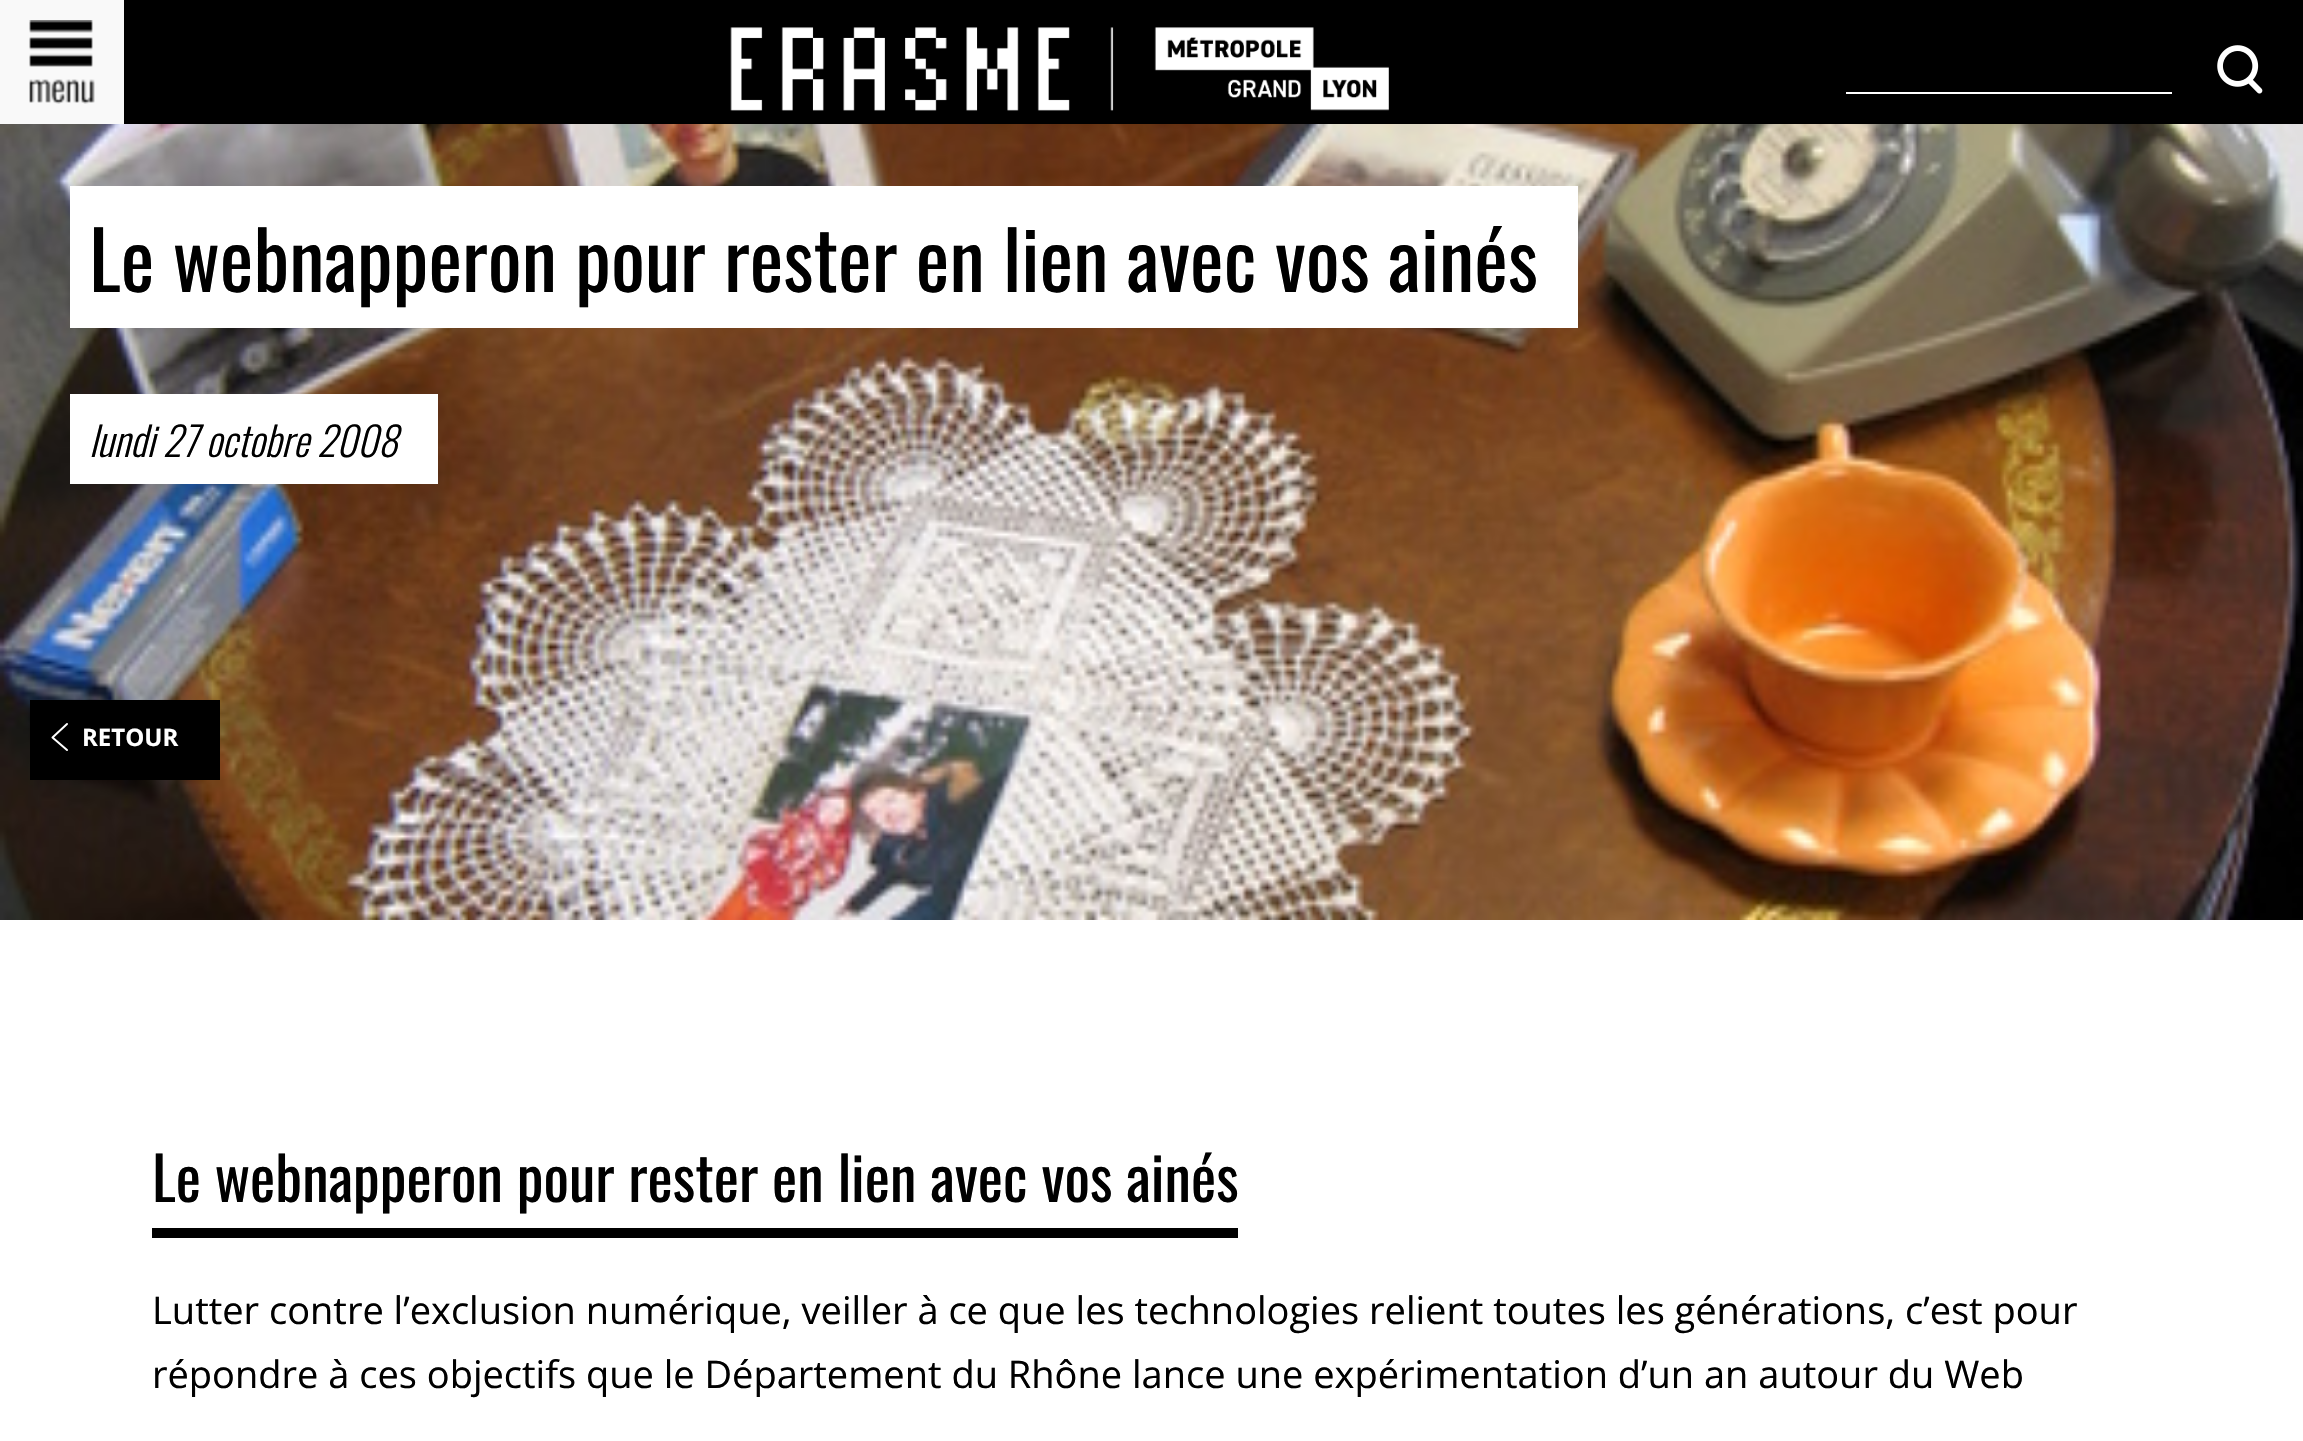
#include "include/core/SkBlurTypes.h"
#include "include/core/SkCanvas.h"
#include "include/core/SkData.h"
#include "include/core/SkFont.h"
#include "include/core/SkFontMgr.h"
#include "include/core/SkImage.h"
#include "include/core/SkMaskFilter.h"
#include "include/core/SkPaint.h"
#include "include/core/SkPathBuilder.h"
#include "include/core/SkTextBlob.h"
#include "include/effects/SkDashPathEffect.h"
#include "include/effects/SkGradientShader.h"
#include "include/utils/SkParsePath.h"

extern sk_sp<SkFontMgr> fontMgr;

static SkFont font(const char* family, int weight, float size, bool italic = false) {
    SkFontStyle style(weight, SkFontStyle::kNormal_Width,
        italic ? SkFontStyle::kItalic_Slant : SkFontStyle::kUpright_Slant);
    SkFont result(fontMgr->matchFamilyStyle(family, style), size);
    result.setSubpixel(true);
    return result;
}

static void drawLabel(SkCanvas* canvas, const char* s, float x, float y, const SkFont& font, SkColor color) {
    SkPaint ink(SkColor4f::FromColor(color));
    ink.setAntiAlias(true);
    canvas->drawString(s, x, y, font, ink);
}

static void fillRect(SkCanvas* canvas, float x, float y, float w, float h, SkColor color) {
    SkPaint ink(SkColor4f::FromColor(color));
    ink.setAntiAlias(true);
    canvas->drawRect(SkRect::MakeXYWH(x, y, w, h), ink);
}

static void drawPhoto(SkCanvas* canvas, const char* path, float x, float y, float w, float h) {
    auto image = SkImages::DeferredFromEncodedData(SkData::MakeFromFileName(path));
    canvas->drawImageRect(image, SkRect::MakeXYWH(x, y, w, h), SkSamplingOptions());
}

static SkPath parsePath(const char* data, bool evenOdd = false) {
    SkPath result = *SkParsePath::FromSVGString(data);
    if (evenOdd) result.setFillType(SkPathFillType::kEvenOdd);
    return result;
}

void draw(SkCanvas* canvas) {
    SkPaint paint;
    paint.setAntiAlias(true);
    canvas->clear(0xFFFFFFFF);
    fillRect(canvas, 124, 0, 2179, 124, 0xFF000000);
    fillRect(canvas, 0, 0, 124, 124, 0xFFF9F9F9);
    drawPhoto(canvas, "assets/img1.png", 29, 20, 66, 84);
    drawPhoto(canvas, "assets/img2.png", 730, 27, 659, 84);
    fillRect(canvas, 1846, 92, 326, 2, 0xFFFFFFFF);
    drawPhoto(canvas, "assets/img3.png", 2217, 45, 46, 49);
    drawPhoto(canvas, "assets/img4.png", 0, 124, 2303, 796);
    fillRect(canvas, 70, 186, 1508, 142, 0xFFFFFFFF);
    SkFont font1 = font("Oswald", 400, 80);
    drawLabel(canvas, "Le webnapperon pour rester en lien avec vos ainés", 89, 292, font1, 0xFF000000);
    fillRect(canvas, 70, 394, 368, 90, 0xFFFFFFFF);
    SkFont font2 = font("Oswald", 300, 40, true);
    drawLabel(canvas, "lundi 27 octobre 2008", 89, 457, font2, 0xFF000000);
    fillRect(canvas, 30, 700, 190, 80, 0xFF000000);
    paint.setStroke(true);
    paint.setStrokeWidth(2);
    paint.setStrokeCap(SkPaint::kRound_Cap);
    paint.setStrokeJoin(SkPaint::kRound_Join);
    paint.setColor(0xFFFFFFFF);
    canvas->drawPath(parsePath("M67 724L52.5 737.5L67 750"), paint);
    SkFont font3 = font("Open Sans", 700, 24);
    drawLabel(canvas, "RETOUR", 82, 746, font3, 0xFFFFFFFF);
    fillRect(canvas, 152, 1228, 1086, 10, 0xFF000000);
    SkFont font4 = font("Oswald", 400, 60);
    drawLabel(canvas, "Le webnapperon pour rester en lien avec vos ainés", 152, 1202, font4, 0xFF000000);
    SkFont font5 = font("Open Sans", 400, 38);
    drawLabel(canvas, "Lutter contre l’exclusion numérique, veiller à ce que les technologies relient toutes les générations, c’est pour", 152, 1324, font5, 0xFF000000);
    drawLabel(canvas, "répondre à ces objectifs que le Département du Rhône lance une expérimentation d’un an autour du Web", 152, 1388, font5, 0xFF000000);
}
